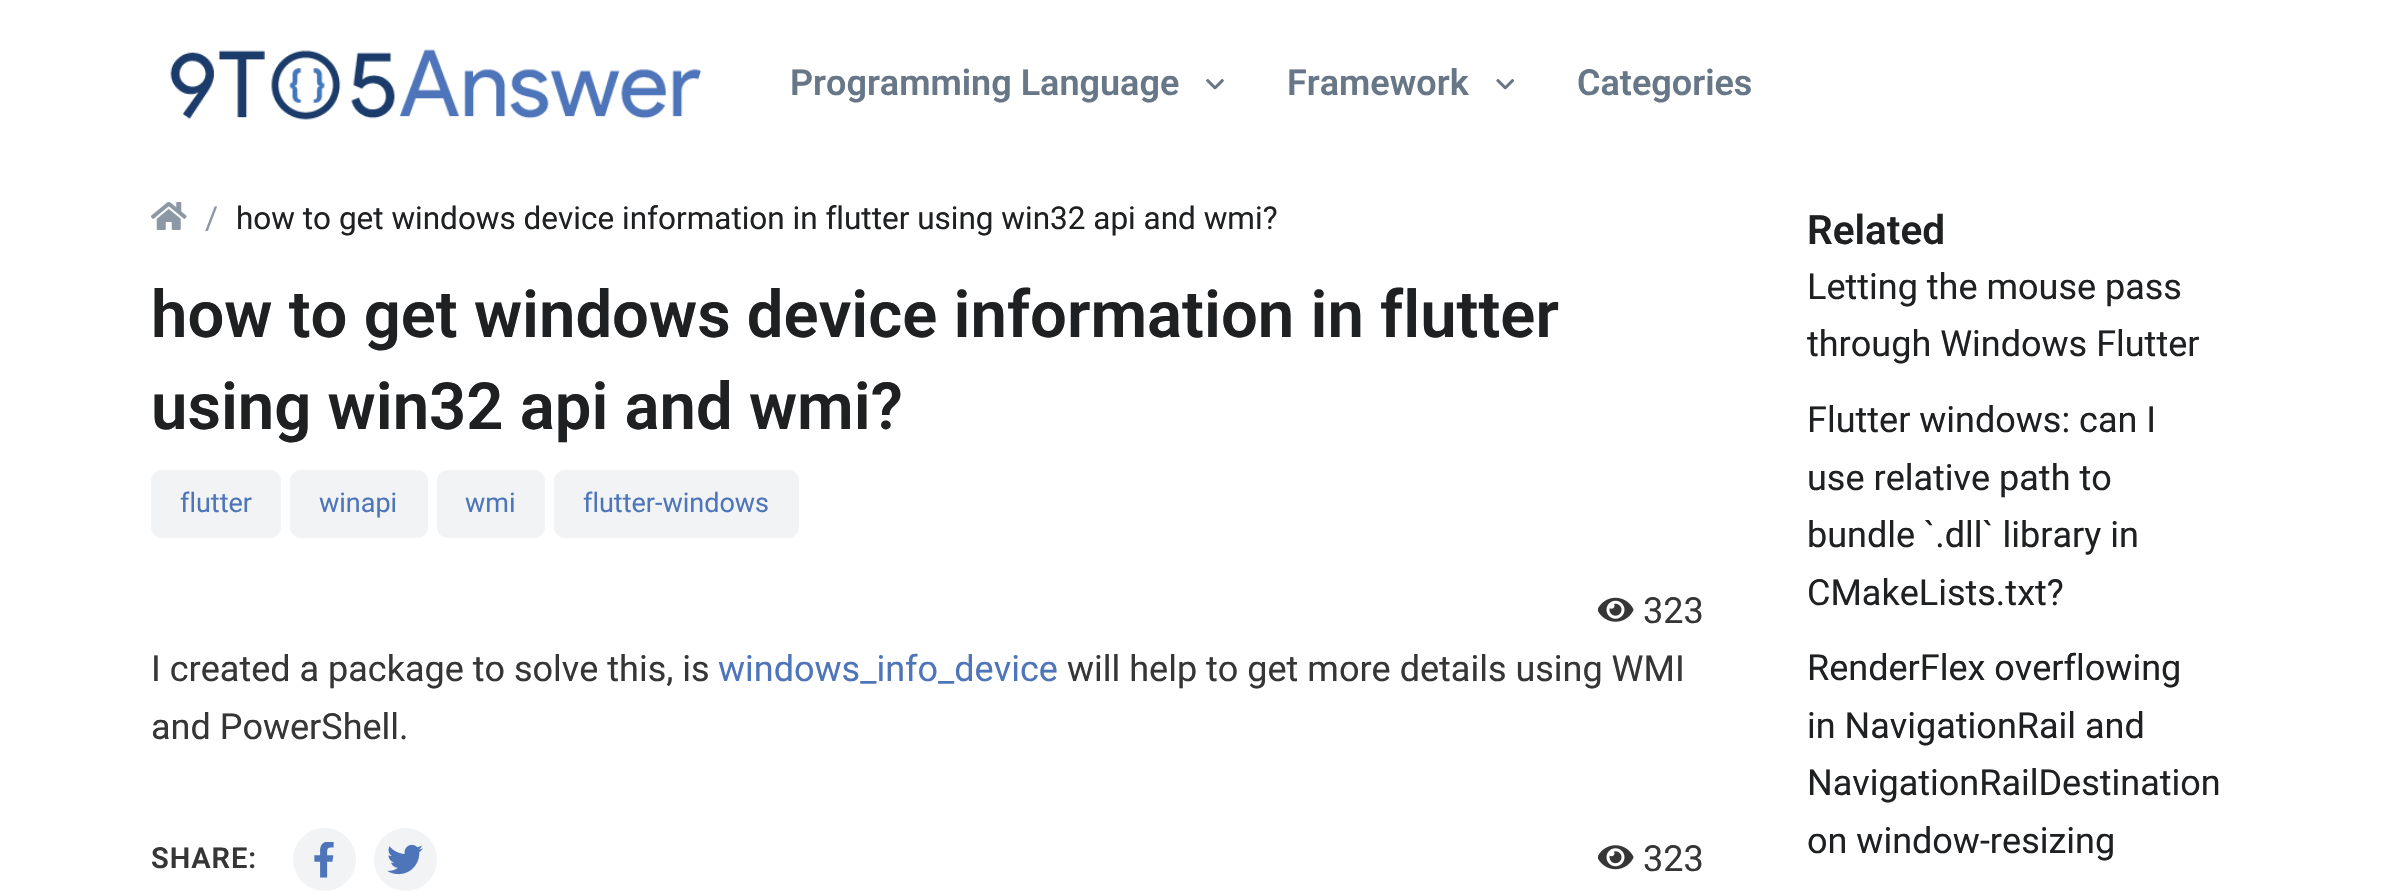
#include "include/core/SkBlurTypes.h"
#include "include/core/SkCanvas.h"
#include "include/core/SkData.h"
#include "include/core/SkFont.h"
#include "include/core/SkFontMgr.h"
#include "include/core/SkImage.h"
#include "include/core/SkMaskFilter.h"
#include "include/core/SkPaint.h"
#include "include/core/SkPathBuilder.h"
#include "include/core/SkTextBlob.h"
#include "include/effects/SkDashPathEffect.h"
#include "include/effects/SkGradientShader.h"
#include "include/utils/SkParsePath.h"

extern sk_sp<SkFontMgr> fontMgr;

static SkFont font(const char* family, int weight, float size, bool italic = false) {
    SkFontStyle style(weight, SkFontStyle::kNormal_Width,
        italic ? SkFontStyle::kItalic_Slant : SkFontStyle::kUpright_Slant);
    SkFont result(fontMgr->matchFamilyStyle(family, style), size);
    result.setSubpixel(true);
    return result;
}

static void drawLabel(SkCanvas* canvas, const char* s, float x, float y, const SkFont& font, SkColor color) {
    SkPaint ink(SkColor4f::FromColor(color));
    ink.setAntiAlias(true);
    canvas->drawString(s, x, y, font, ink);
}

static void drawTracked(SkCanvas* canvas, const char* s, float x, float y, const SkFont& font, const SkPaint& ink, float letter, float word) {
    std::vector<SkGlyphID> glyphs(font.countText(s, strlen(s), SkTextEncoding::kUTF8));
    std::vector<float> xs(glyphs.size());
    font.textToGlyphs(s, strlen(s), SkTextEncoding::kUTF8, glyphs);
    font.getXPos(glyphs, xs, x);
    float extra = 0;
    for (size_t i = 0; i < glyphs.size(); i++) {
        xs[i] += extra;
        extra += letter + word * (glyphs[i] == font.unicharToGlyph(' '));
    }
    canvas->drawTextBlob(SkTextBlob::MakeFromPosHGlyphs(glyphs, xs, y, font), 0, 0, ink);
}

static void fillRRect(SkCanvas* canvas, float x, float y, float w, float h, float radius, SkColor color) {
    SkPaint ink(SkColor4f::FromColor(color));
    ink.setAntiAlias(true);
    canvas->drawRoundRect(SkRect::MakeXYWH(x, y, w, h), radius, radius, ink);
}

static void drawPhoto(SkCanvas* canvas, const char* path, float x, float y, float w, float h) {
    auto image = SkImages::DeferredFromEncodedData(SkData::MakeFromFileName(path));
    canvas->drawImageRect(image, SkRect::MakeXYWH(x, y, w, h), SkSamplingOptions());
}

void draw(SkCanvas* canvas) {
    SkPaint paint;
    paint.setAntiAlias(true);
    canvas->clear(0xFFFFFFFF);
    drawPhoto(canvas, "assets/img1.png", 170, 49, 532, 71);
    SkFont font1 = font("Roboto", 600, 36);
    drawLabel(canvas, "Programming Language", 790, 95, font1, 0xFF677788);
    drawPhoto(canvas, "assets/img2.png", 1206, 78, 18, 12);
    drawLabel(canvas, "Framework", 1287, 95, font1, 0xFF677788);
    drawPhoto(canvas, "assets/img3.png", 1496, 78, 19, 12);
    drawLabel(canvas, "Categories", 1577, 95, font1, 0xFF677788);
    drawPhoto(canvas, "assets/img4.png", 151, 202, 36, 28);
    SkFont font2 = font("Roboto", 400, 31.5f);
    drawLabel(canvas, "/", 205, 229, font2, 0xFF8C98A4);
    drawLabel(canvas, "how to get windows device information in flutter using win32 api and wmi?", 236, 229, font2, 0xFF1E2022);
    SkFont font3 = font("Roboto", 600, 65.2f);
    drawLabel(canvas, "how to get windows device information in flutter", 151, 337, font3, 0xFF1E2022);
    drawLabel(canvas, "using win32 api and wmi?", 151, 429, font3, 0xFF1E2022);
    fillRRect(canvas, 151, 470, 130, 68, 11, 0xFFF1F3F5);
    SkFont font4 = font("Roboto", 400, 27);
    drawLabel(canvas, "flutter", 180, 512, font4, 0xFF4E75B9);
    fillRRect(canvas, 290, 470, 138, 68, 11, 0xFFF1F3F5);
    drawLabel(canvas, "winapi", 319, 512, font4, 0xFF4E75B9);
    fillRRect(canvas, 437, 470, 108, 68, 11, 0xFFF1F3F5);
    drawLabel(canvas, "wmi", 465, 512, font4, 0xFF4E75B9);
    fillRRect(canvas, 554, 470, 245, 68, 11, 0xFFF1F3F5);
    drawLabel(canvas, "flutter-windows", 583, 512, font4, 0xFF4E75B9);
    drawPhoto(canvas, "assets/img5.png", 1598, 597, 36, 25);
    SkFont font5 = font("Roboto", 400, 36);
    drawLabel(canvas, "323", 1643, 623, font5, 0xFF363636);
    drawLabel(canvas, "I created a package to solve this, is", 151, 681, font5, 0xFF363636);
    drawLabel(canvas, "windows_info_device", 718, 681, font5, 0xFF4E75B9);
    drawLabel(canvas, "will help to get more details using WMI", 1067, 681, font5, 0xFF363636);
    drawLabel(canvas, "and PowerShell.", 151, 739, font5, 0xFF363636);
    SkFont font6 = font("Roboto", 600, 29);
    paint.setColor(0xFF363636);
    drawTracked(canvas, "SHARE:", 151, 868, font6, paint, 1, 0);
    paint.setColor(0xFFF1F3F5);
    canvas->drawCircle(324.5f, 859.5f, 31.5f, paint);
    drawPhoto(canvas, "assets/img6.png", 314, 842, 20, 36);
    canvas->drawCircle(405.5f, 859.5f, 31.5f, paint);
    drawPhoto(canvas, "assets/img7.png", 387, 844, 36, 31);
    drawPhoto(canvas, "assets/img8.png", 1598, 845, 36, 25);
    drawLabel(canvas, "323", 1643, 871, font5, 0xFF363636);
    SkFont font7 = font("Roboto", 600, 40.5f);
    drawLabel(canvas, "Related", 1807, 244, font7, 0xFF1E2022);
    drawLabel(canvas, "Letting the mouse pass", 1807, 299, font5, 0xFF1E2022);
    drawLabel(canvas, "through Windows Flutter", 1807, 356, font5, 0xFF1E2022);
    drawLabel(canvas, "Flutter windows: can I", 1807, 432, font5, 0xFF1E2022);
    drawLabel(canvas, "use relative path to", 1807, 490, font5, 0xFF1E2022);
    drawLabel(canvas, "bundle `.dll` library in", 1807, 547, font5, 0xFF1E2022);
    drawLabel(canvas, "CMakeLists.txt?", 1807, 605, font5, 0xFF1E2022);
    drawLabel(canvas, "RenderFlex overflowing", 1807, 680, font5, 0xFF1E2022);
    drawLabel(canvas, "in NavigationRail and", 1807, 738, font5, 0xFF1E2022);
    drawLabel(canvas, "NavigationRailDestination", 1807, 795, font5, 0xFF1E2022);
    drawLabel(canvas, "on window-resizing", 1807, 853, font5, 0xFF1E2022);
}
